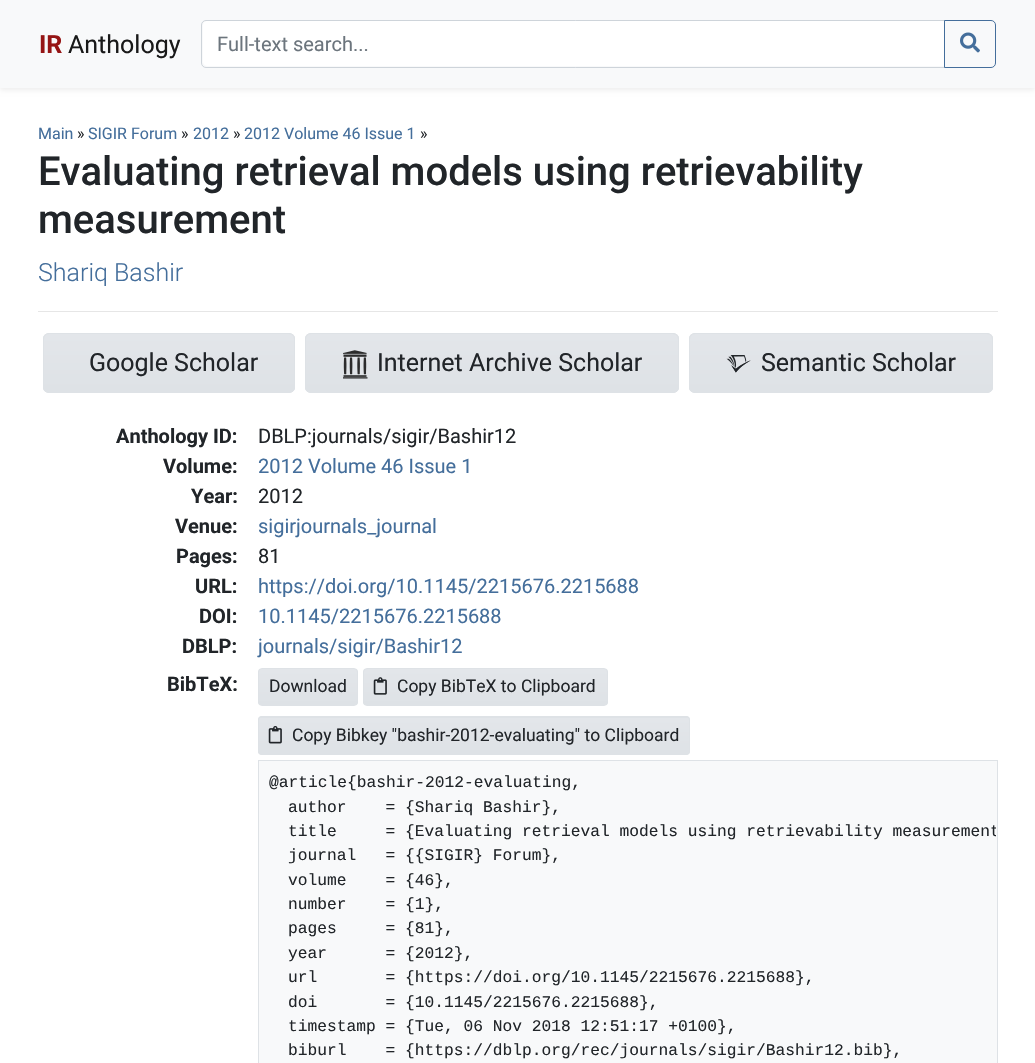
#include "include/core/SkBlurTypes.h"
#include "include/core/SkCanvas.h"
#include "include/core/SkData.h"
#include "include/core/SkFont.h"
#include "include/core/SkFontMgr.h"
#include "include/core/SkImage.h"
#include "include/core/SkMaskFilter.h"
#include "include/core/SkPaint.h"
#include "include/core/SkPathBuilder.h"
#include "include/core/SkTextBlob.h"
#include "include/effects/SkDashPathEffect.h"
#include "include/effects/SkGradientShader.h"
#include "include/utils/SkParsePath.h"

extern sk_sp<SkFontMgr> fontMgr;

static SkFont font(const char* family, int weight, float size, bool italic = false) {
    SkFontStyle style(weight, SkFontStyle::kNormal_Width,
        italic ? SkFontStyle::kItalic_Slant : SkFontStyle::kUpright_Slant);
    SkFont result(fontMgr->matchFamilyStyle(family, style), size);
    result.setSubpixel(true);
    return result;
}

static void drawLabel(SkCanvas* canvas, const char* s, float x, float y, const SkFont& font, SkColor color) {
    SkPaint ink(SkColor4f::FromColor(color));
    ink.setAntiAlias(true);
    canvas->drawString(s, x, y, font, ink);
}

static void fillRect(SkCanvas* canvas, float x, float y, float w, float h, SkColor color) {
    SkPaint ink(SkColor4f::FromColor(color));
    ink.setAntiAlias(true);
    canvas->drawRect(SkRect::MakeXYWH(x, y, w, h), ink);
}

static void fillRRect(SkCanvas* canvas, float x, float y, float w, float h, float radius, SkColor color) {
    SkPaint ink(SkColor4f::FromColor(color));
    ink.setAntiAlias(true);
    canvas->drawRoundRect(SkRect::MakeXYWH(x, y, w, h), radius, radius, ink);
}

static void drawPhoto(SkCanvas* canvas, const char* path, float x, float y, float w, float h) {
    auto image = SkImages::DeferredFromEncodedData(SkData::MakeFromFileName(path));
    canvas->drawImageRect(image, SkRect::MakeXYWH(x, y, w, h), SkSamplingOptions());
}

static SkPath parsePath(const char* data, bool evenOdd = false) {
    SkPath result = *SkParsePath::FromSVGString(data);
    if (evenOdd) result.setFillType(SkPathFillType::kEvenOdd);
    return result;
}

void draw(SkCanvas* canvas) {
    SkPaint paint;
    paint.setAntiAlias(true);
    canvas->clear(0xFFFFFFFF);
    paint.setColor(0x12000000);
    paint.setMaskFilter(SkMaskFilter::MakeBlur(kNormal_SkBlurStyle, 2.5f));
    canvas->drawRect(SkRect::MakeXYWH(0, 3, 1035, 87), paint);
    paint.setMaskFilter(nullptr);
    fillRect(canvas, 0, 0, 1035, 88, 0xFFF8F9FA);
    SkFont font1 = font("Roboto", 700, 25);
    drawLabel(canvas, "IR", 39, 53, font1, 0xFF951515);
    SkFont font2 = font("Roboto", 400, 25);
    drawLabel(canvas, "Anthology", 68, 53, font2, 0xFF191919);
    paint.setColor(0xFFFFFFFF);
    canvas->drawPath(parsePath("M207 21H944V66H207C205 66 203 64 203 62V25C203 23 205 21 207 21Z"), paint);
    paint.setStroke(true);
    paint.setStrokeWidth(1);
    paint.setColor(0xFFCED4DA);
    canvas->drawPath(parsePath("M206 20.5H944.5V67.5H206C203.5 67.5 201.5 65.5 201.5 63V25C201.5 22.5 203.5 20.5 206 20.5Z"), paint);
    SkFont font3 = font("Roboto", 400, 20);
    drawLabel(canvas, "Full-text search...", 217, 51, font3, 0xFF6C757D);
    paint.setColor(0xFF446E9B);
    canvas->drawPath(parsePath("M944.5 20.5H991C993.5 20.5 995.5 22.5 995.5 25V63C995.5 65.5 993.5 67.5 991 67.5H944.5Z"), paint);
    drawPhoto(canvas, "assets/img1.png", 960, 32, 20, 21);
    SkFont font4 = font("Roboto", 400, 16);
    drawLabel(canvas, "Main", 38, 139, font4, 0xFF446E9B);
    drawLabel(canvas, "»", 77, 139, font4, 0xFF212529);
    drawLabel(canvas, "SIGIR Forum", 88, 139, font4, 0xFF446E9B);
    drawLabel(canvas, "»", 181, 139, font4, 0xFF212529);
    drawLabel(canvas, "2012", 193, 139, font4, 0xFF446E9B);
    drawLabel(canvas, "»", 233, 139, font4, 0xFF212529);
    drawLabel(canvas, "2012 Volume 46 Issue 1", 244, 139, font4, 0xFF446E9B);
    drawLabel(canvas, "»", 420, 139, font4, 0xFF212529);
    SkFont font5 = font("Roboto", 500, 40);
    drawLabel(canvas, "Evaluating retrieval models using retrievability", 38, 185, font5, 0xFF212529);
    drawLabel(canvas, "measurement", 38, 233, font5, 0xFF212529);
    SkFont font6 = font("Roboto", 300, 25);
    drawLabel(canvas, "Shariq Bashir", 38, 281, font6, 0xFF446E9B);
    fillRect(canvas, 38, 311, 960, 1, 0xFFE6E6E6);
    fillRRect(canvas, 43, 333, 252, 60, 6, 0xFFDEE2E6);
    canvas->save();
    canvas->clipPath(parsePath("M49 333H289C292.5 333 295 335.5 295 339V387C295 390.5 292.5 393 289 393H49C45.5 393 43 390.5 43 387V339C43 335.5 45.5 333 49 333Z"), true);
    paint.setStroke(false);
    {
        const SkColor colors[] = {0xFFE3E6EA, 0xFFDEE2E6};
        const float stops[] = {0, 1};
        const SkPoint ends[] = {{169, 334}, {169, 391}};
        paint.setShader(SkGradientShader::MakeLinear(ends, colors, stops, 2, SkTileMode::kClamp));
        paint.setAlpha(255);
    }
    canvas->drawRect(SkRect::MakeXYWH(43, 334, 252, 57), paint);
    canvas->restore();
    paint.setStroke(true);
    paint.setShader(nullptr);
    paint.setColor(0xFFDEE2E6);
    canvas->drawRoundRect(SkRect::MakeXYWH(43.5f, 333.5f, 251, 59), 5.5f, 5.5f, paint);
    drawLabel(canvas, "Google Scholar", 89, 371, font2, 0xFF212529);
    fillRRect(canvas, 305, 333, 374, 60, 6, 0xFFDEE2E6);
    canvas->save();
    canvas->clipPath(parsePath("M311 333H673C676.5 333 679 335.5 679 339V387C679 390.5 676.5 393 673 393H311C307.5 393 305 390.5 305 387V339C305 335.5 307.5 333 311 333Z"), true);
    paint.setStroke(false);
    {
        const SkColor colors[] = {0xFFE3E6EA, 0xFFDEE2E6};
        const float stops[] = {0, 1};
        const SkPoint ends[] = {{492, 334}, {492, 391}};
        paint.setShader(SkGradientShader::MakeLinear(ends, colors, stops, 2, SkTileMode::kClamp));
        paint.setAlpha(255);
    }
    canvas->drawRect(SkRect::MakeXYWH(305, 334, 374, 57), paint);
    canvas->restore();
    paint.setStroke(true);
    paint.setShader(nullptr);
    paint.setColor(0xFFDEE2E6);
    canvas->drawRoundRect(SkRect::MakeXYWH(305.5f, 333.5f, 373, 59), 5.5f, 5.5f, paint);
    drawPhoto(canvas, "assets/img2.png", 343, 350, 25, 29);
    drawLabel(canvas, "Internet Archive Scholar", 377, 371, font2, 0xFF212529);
    fillRRect(canvas, 689, 333, 304, 60, 6, 0xFFDEE2E6);
    canvas->save();
    canvas->clipPath(parsePath("M695 333H987C990.5 333 993 335.5 993 339V387C993 390.5 990.5 393 987 393H695C691.5 393 689 390.5 689 387V339C689 335.5 691.5 333 695 333Z"), true);
    paint.setStroke(false);
    {
        const SkColor colors[] = {0xFFE3E6EA, 0xFFDEE2E6};
        const float stops[] = {0, 1};
        const SkPoint ends[] = {{841, 334}, {841, 391}};
        paint.setShader(SkGradientShader::MakeLinear(ends, colors, stops, 2, SkTileMode::kClamp));
        paint.setAlpha(255);
    }
    canvas->drawRect(SkRect::MakeXYWH(689, 334, 304, 57), paint);
    canvas->restore();
    paint.setStroke(true);
    paint.setShader(nullptr);
    paint.setColor(0xFFDEE2E6);
    canvas->drawRoundRect(SkRect::MakeXYWH(689.5f, 333.5f, 303, 59), 5.5f, 5.5f, paint);
    drawPhoto(canvas, "assets/img3.png", 726, 355, 25, 18);
    drawLabel(canvas, "Semantic Scholar", 761, 371, font2, 0xFF212529);
    SkFont font7 = font("Roboto", 700, 20);
    drawLabel(canvas, "Anthology ID:", 116, 443, font7, 0xFF212529);
    drawLabel(canvas, "DBLP:journals/sigir/Bashir12", 258, 443, font3, 0xFF212529);
    drawLabel(canvas, "Volume:", 163, 473, font7, 0xFF212529);
    drawLabel(canvas, "2012 Volume 46 Issue 1", 258, 473, font3, 0xFF446E9B);
    drawLabel(canvas, "Year:", 191, 503, font7, 0xFF212529);
    drawLabel(canvas, "2012", 258, 503, font3, 0xFF212529);
    drawLabel(canvas, "Venue:", 175, 533, font7, 0xFF212529);
    drawLabel(canvas, "sigirjournals_journal", 258, 533, font3, 0xFF446E9B);
    drawLabel(canvas, "Pages:", 176, 563, font7, 0xFF212529);
    drawLabel(canvas, "81", 258, 563, font3, 0xFF212529);
    drawLabel(canvas, "URL:", 195, 593, font7, 0xFF212529);
    drawLabel(canvas, "https://doi.org/10.1145/2215676.2215688", 258, 593, font3, 0xFF446E9B);
    drawLabel(canvas, "DOI:", 199, 623, font7, 0xFF212529);
    drawLabel(canvas, "10.1145/2215676.2215688", 258, 623, font3, 0xFF446E9B);
    drawLabel(canvas, "DBLP:", 182, 653, font7, 0xFF212529);
    drawLabel(canvas, "journals/sigir/Bashir12", 258, 653, font3, 0xFF446E9B);
    drawLabel(canvas, "BibTeX:", 167, 691, font7, 0xFF212529);
    canvas->save();
    canvas->clipPath(parsePath("M262 668H354C356 668 358 670 358 672V702C358 704 356 706 354 706H262C260 706 258 704 258 702V672C258 670 260 668 262 668Z"), true);
    paint.setStroke(false);
    {
        const SkColor colors[] = {0xFFE3E6EA, 0xFFDEE2E6};
        const float stops[] = {0, 1};
        const SkPoint ends[] = {{308, 669}, {308, 705}};
        paint.setShader(SkGradientShader::MakeLinear(ends, colors, stops, 2, SkTileMode::kClamp));
        paint.setAlpha(255);
    }
    canvas->drawRect(SkRect::MakeXYWH(258, 669, 100, 36), paint);
    canvas->restore();
    paint.setStroke(true);
    paint.setShader(nullptr);
    paint.setColor(0xFFDEE2E6);
    canvas->drawRoundRect(SkRect::MakeXYWH(258.5f, 668.5f, 99, 37), 3.5f, 3.5f, paint);
    SkFont font8 = font("Roboto", 400, 17.5f);
    drawLabel(canvas, "Download", 269, 692, font8, 0xFF212529);
    canvas->save();
    canvas->clipPath(parsePath("M367 668H604C606 668 608 670 608 672V702C608 704 606 706 604 706H367C365 706 363 704 363 702V672C363 670 365 668 367 668Z"), true);
    paint.setStroke(false);
    {
        const SkColor colors[] = {0xFFE3E6EA, 0xFFDEE2E6};
        const float stops[] = {0, 1};
        const SkPoint ends[] = {{485, 669}, {485, 705}};
        paint.setShader(SkGradientShader::MakeLinear(ends, colors, stops, 2, SkTileMode::kClamp));
        paint.setAlpha(255);
    }
    canvas->drawRect(SkRect::MakeXYWH(363, 669, 245, 36), paint);
    canvas->restore();
    paint.setStroke(true);
    paint.setShader(nullptr);
    paint.setColor(0xFFDEE2E6);
    canvas->drawRoundRect(SkRect::MakeXYWH(363.5f, 668.5f, 244, 37), 3.5f, 3.5f, paint);
    drawPhoto(canvas, "assets/img4.png", 373, 677, 14, 18);
    drawLabel(canvas, "Copy BibTeX to Clipboard", 397, 692, font8, 0xFF212529);
    fillRRect(canvas, 258, 716, 432, 39, 4, 0xFFDEE2E6);
    canvas->save();
    canvas->clipPath(parsePath("M262 716H686C688 716 690 718 690 720V751C690 753 688 755 686 755H262C260 755 258 753 258 751V720C258 718 260 716 262 716Z"), true);
    paint.setStroke(false);
    {
        const SkColor colors[] = {0xFFE3E6EA, 0xFFDEE2E6};
        const float stops[] = {0, 1};
        const SkPoint ends[] = {{474, 718}, {474, 754}};
        paint.setShader(SkGradientShader::MakeLinear(ends, colors, stops, 2, SkTileMode::kClamp));
        paint.setAlpha(255);
    }
    canvas->drawRect(SkRect::MakeXYWH(258, 718, 432, 36), paint);
    canvas->restore();
    paint.setStroke(true);
    paint.setShader(nullptr);
    paint.setColor(0xFFDEE2E6);
    canvas->drawRoundRect(SkRect::MakeXYWH(258.5f, 716.5f, 431, 38), 3.5f, 3.5f, paint);
    drawPhoto(canvas, "assets/img5.png", 268, 726, 14, 18);
    drawLabel(canvas, "Copy Bibkey \"bashir-2012-evaluating\" to Clipboard", 292, 741, font8, 0xFF212529);
    paint.setStroke(false);
    paint.setColor(0xFFF8F9FA);
    canvas->drawRect(SkRect::MakeXYWH(258.5f, 760.5f, 739, 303), paint);
    paint.setStroke(true);
    paint.setColor(0xFFDEE2E6);
    canvas->drawRect(SkRect::MakeXYWH(258.5f, 760.5f, 739, 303), paint);
    SkFont font9 = font("Liberation Mono", 400, 16.25f);
    drawLabel(canvas, "@article{bashir-2012-evaluating,", 269, 787, font9, 0xFF212529);
    drawLabel(canvas, "author    = {Shariq Bashir},", 288, 812, font9, 0xFF212529);
    canvas->save();
    canvas->clipRect(SkRect::MakeXYWH(259, 761, 737, 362));
    drawLabel(canvas, "title     = {Evaluating retrieval models using retrievability measurement", 288, 836, font9, 0xFF212529);
    canvas->restore();
    drawLabel(canvas, "journal   = {{SIGIR} Forum},", 288, 860, font9, 0xFF212529);
    drawLabel(canvas, "volume    = {46},", 288, 885, font9, 0xFF212529);
    drawLabel(canvas, "number    = {1},", 288, 909, font9, 0xFF212529);
    drawLabel(canvas, "pages     = {81},", 288, 933, font9, 0xFF212529);
    drawLabel(canvas, "year      = {2012},", 288, 958, font9, 0xFF212529);
    drawLabel(canvas, "url       = {https://doi.org/10.1145/2215676.2215688},", 288, 982, font9, 0xFF212529);
    drawLabel(canvas, "doi       = {10.1145/2215676.2215688},", 288, 1007, font9, 0xFF212529);
    drawLabel(canvas, "timestamp = {Tue, 06 Nov 2018 12:51:17 +0100},", 288, 1031, font9, 0xFF212529);
    drawLabel(canvas, "biburl    = {https://dblp.org/rec/journals/sigir/Bashir12.bib},", 288, 1055, font9, 0xFF212529);
}
